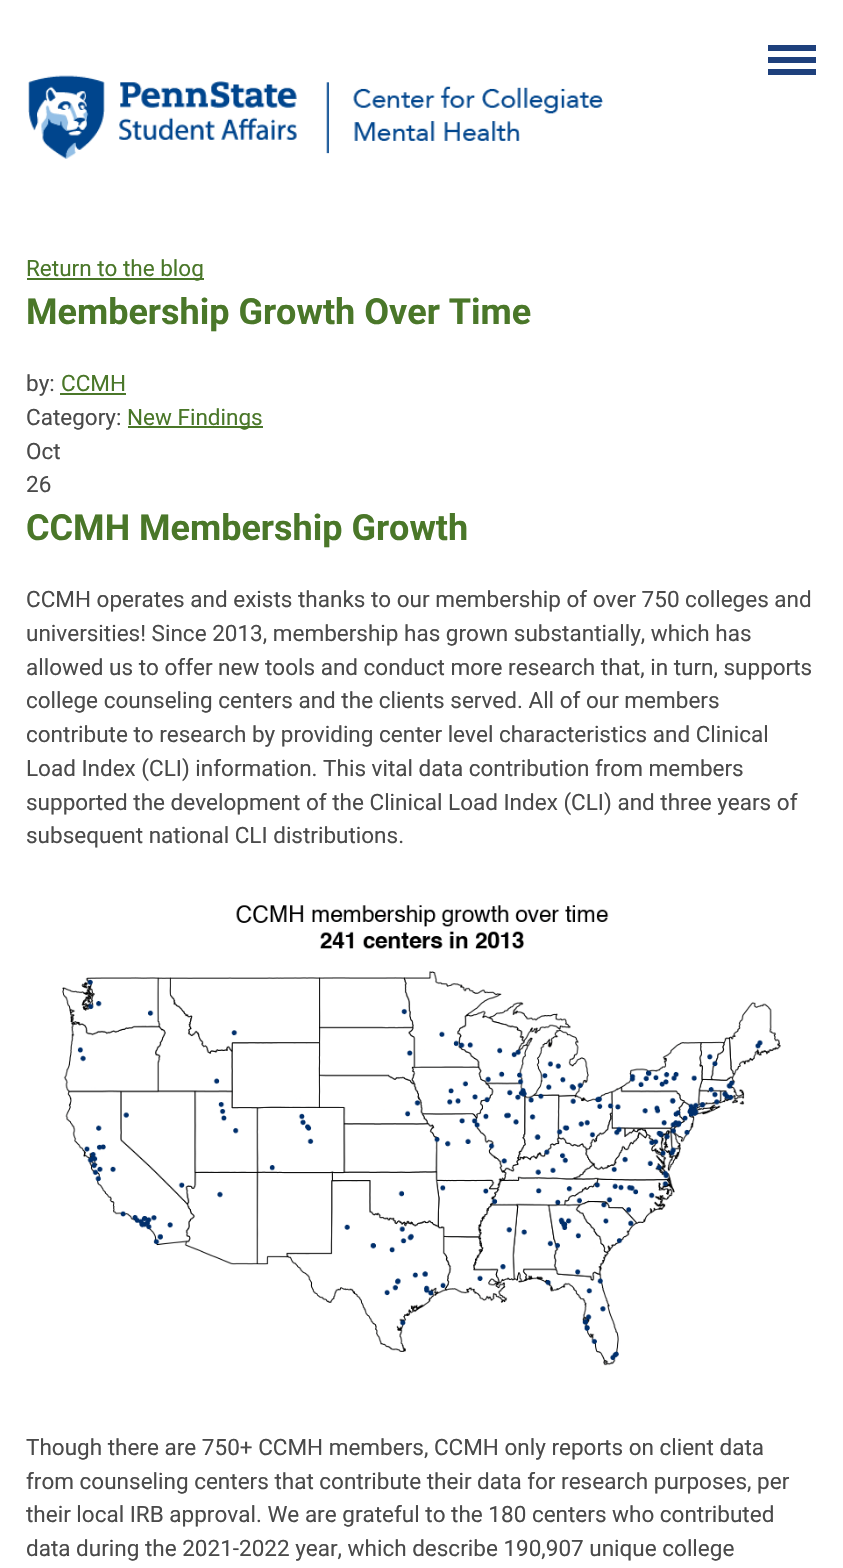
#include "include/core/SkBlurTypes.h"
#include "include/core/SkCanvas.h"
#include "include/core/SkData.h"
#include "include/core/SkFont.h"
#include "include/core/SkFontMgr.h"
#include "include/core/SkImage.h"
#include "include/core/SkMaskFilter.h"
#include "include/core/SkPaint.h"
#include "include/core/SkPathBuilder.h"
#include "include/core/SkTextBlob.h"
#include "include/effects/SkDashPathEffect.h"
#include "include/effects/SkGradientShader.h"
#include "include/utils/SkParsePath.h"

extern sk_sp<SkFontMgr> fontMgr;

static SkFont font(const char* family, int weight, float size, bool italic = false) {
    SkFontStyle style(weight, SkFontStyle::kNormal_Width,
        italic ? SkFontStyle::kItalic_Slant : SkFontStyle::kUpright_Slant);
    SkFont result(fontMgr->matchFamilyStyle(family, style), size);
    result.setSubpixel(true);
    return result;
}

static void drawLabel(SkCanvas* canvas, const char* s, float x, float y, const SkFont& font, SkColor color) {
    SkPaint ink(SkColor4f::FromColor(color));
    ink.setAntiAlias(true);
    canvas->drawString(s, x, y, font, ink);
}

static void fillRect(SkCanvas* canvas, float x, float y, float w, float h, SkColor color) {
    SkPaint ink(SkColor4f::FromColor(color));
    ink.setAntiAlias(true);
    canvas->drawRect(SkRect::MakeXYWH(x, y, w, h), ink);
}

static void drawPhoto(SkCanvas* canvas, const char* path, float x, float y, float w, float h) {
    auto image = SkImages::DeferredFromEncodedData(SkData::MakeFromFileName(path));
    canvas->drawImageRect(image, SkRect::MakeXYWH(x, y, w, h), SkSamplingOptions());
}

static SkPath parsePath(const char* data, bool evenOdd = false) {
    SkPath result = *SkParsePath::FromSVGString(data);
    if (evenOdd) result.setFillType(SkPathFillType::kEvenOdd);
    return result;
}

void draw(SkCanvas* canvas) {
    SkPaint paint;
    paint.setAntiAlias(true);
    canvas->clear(0xFFFFFFFF);
    paint.setColor(0xFF1E407C);
    canvas->drawPath(parsePath("M768 45H816V51H768ZM768 57H816V63H768ZM768 69H816V75H768Z"), paint);
    drawPhoto(canvas, "assets/img1.png", 28, 75, 576, 84);
    fillRect(canvas, 27, 278, 177, 2, 0xFF4A7729);
    SkFont font1 = font("Roboto", 400, 22.5f);
    drawLabel(canvas, "Return to the blog", 26, 276, font1, 0xFF4A7729);
    SkFont font2 = font("Roboto", 700, 36);
    drawLabel(canvas, "Membership Growth Over Time", 26, 324, font2, 0xFF4A7729);
    drawLabel(canvas, "by:", 26, 391, font1, 0xFF4A4A4A);
    drawLabel(canvas, "CCMH", 61, 391, font1, 0xFF4A7729);
    fillRect(canvas, 60, 393, 66, 2, 0xFF4A7729);
    drawLabel(canvas, "Category:", 26, 425, font1, 0xFF4A4A4A);
    fillRect(canvas, 128, 426, 135, 2, 0xFF4A7729);
    drawLabel(canvas, "New Findings", 127, 425, font1, 0xFF4A7729);
    drawLabel(canvas, "Oct", 26, 459, font1, 0xFF4A4A4A);
    drawLabel(canvas, "26", 26, 492, font1, 0xFF4A4A4A);
    drawLabel(canvas, "CCMH Membership Growth", 26, 540, font2, 0xFF4A7729);
    drawLabel(canvas, "CCMH operates and exists thanks to our membership of over 750 colleges and", 26, 607, font1, 0xFF4A4A4A);
    drawLabel(canvas, "universities! Since 2013, membership has grown substantially, which has", 26, 641, font1, 0xFF4A4A4A);
    drawLabel(canvas, "allowed us to offer new tools and conduct more research that, in turn, supports", 26, 675, font1, 0xFF4A4A4A);
    drawLabel(canvas, "college counseling centers and the clients served. All of our members", 26, 708, font1, 0xFF4A4A4A);
    drawLabel(canvas, "contribute to research by providing center level characteristics and Clinical", 26, 742, font1, 0xFF4A4A4A);
    drawLabel(canvas, "Load Index (CLI) information. This vital data contribution from members", 26, 776, font1, 0xFF4A4A4A);
    drawLabel(canvas, "supported the development of the Clinical Load Index (CLI) and three years of", 26, 810, font1, 0xFF4A4A4A);
    drawLabel(canvas, "subsequent national CLI distributions.", 26, 843, font1, 0xFF4A4A4A);
    drawPhoto(canvas, "assets/img2.png", 62, 905, 719, 461);
    drawLabel(canvas, "Though there are 750+ CCMH members, CCMH only reports on client data", 26, 1455, font1, 0xFF4A4A4A);
    drawLabel(canvas, "from counseling centers that contribute their data for research purposes, per", 26, 1489, font1, 0xFF4A4A4A);
    drawLabel(canvas, "their local IRB approval. We are grateful to the 180 centers who contributed", 26, 1522, font1, 0xFF4A4A4A);
    drawLabel(canvas, "data during the 2021-2022 year, which describe 190,907 unique college", 26, 1556, font1, 0xFF4A4A4A);
}
